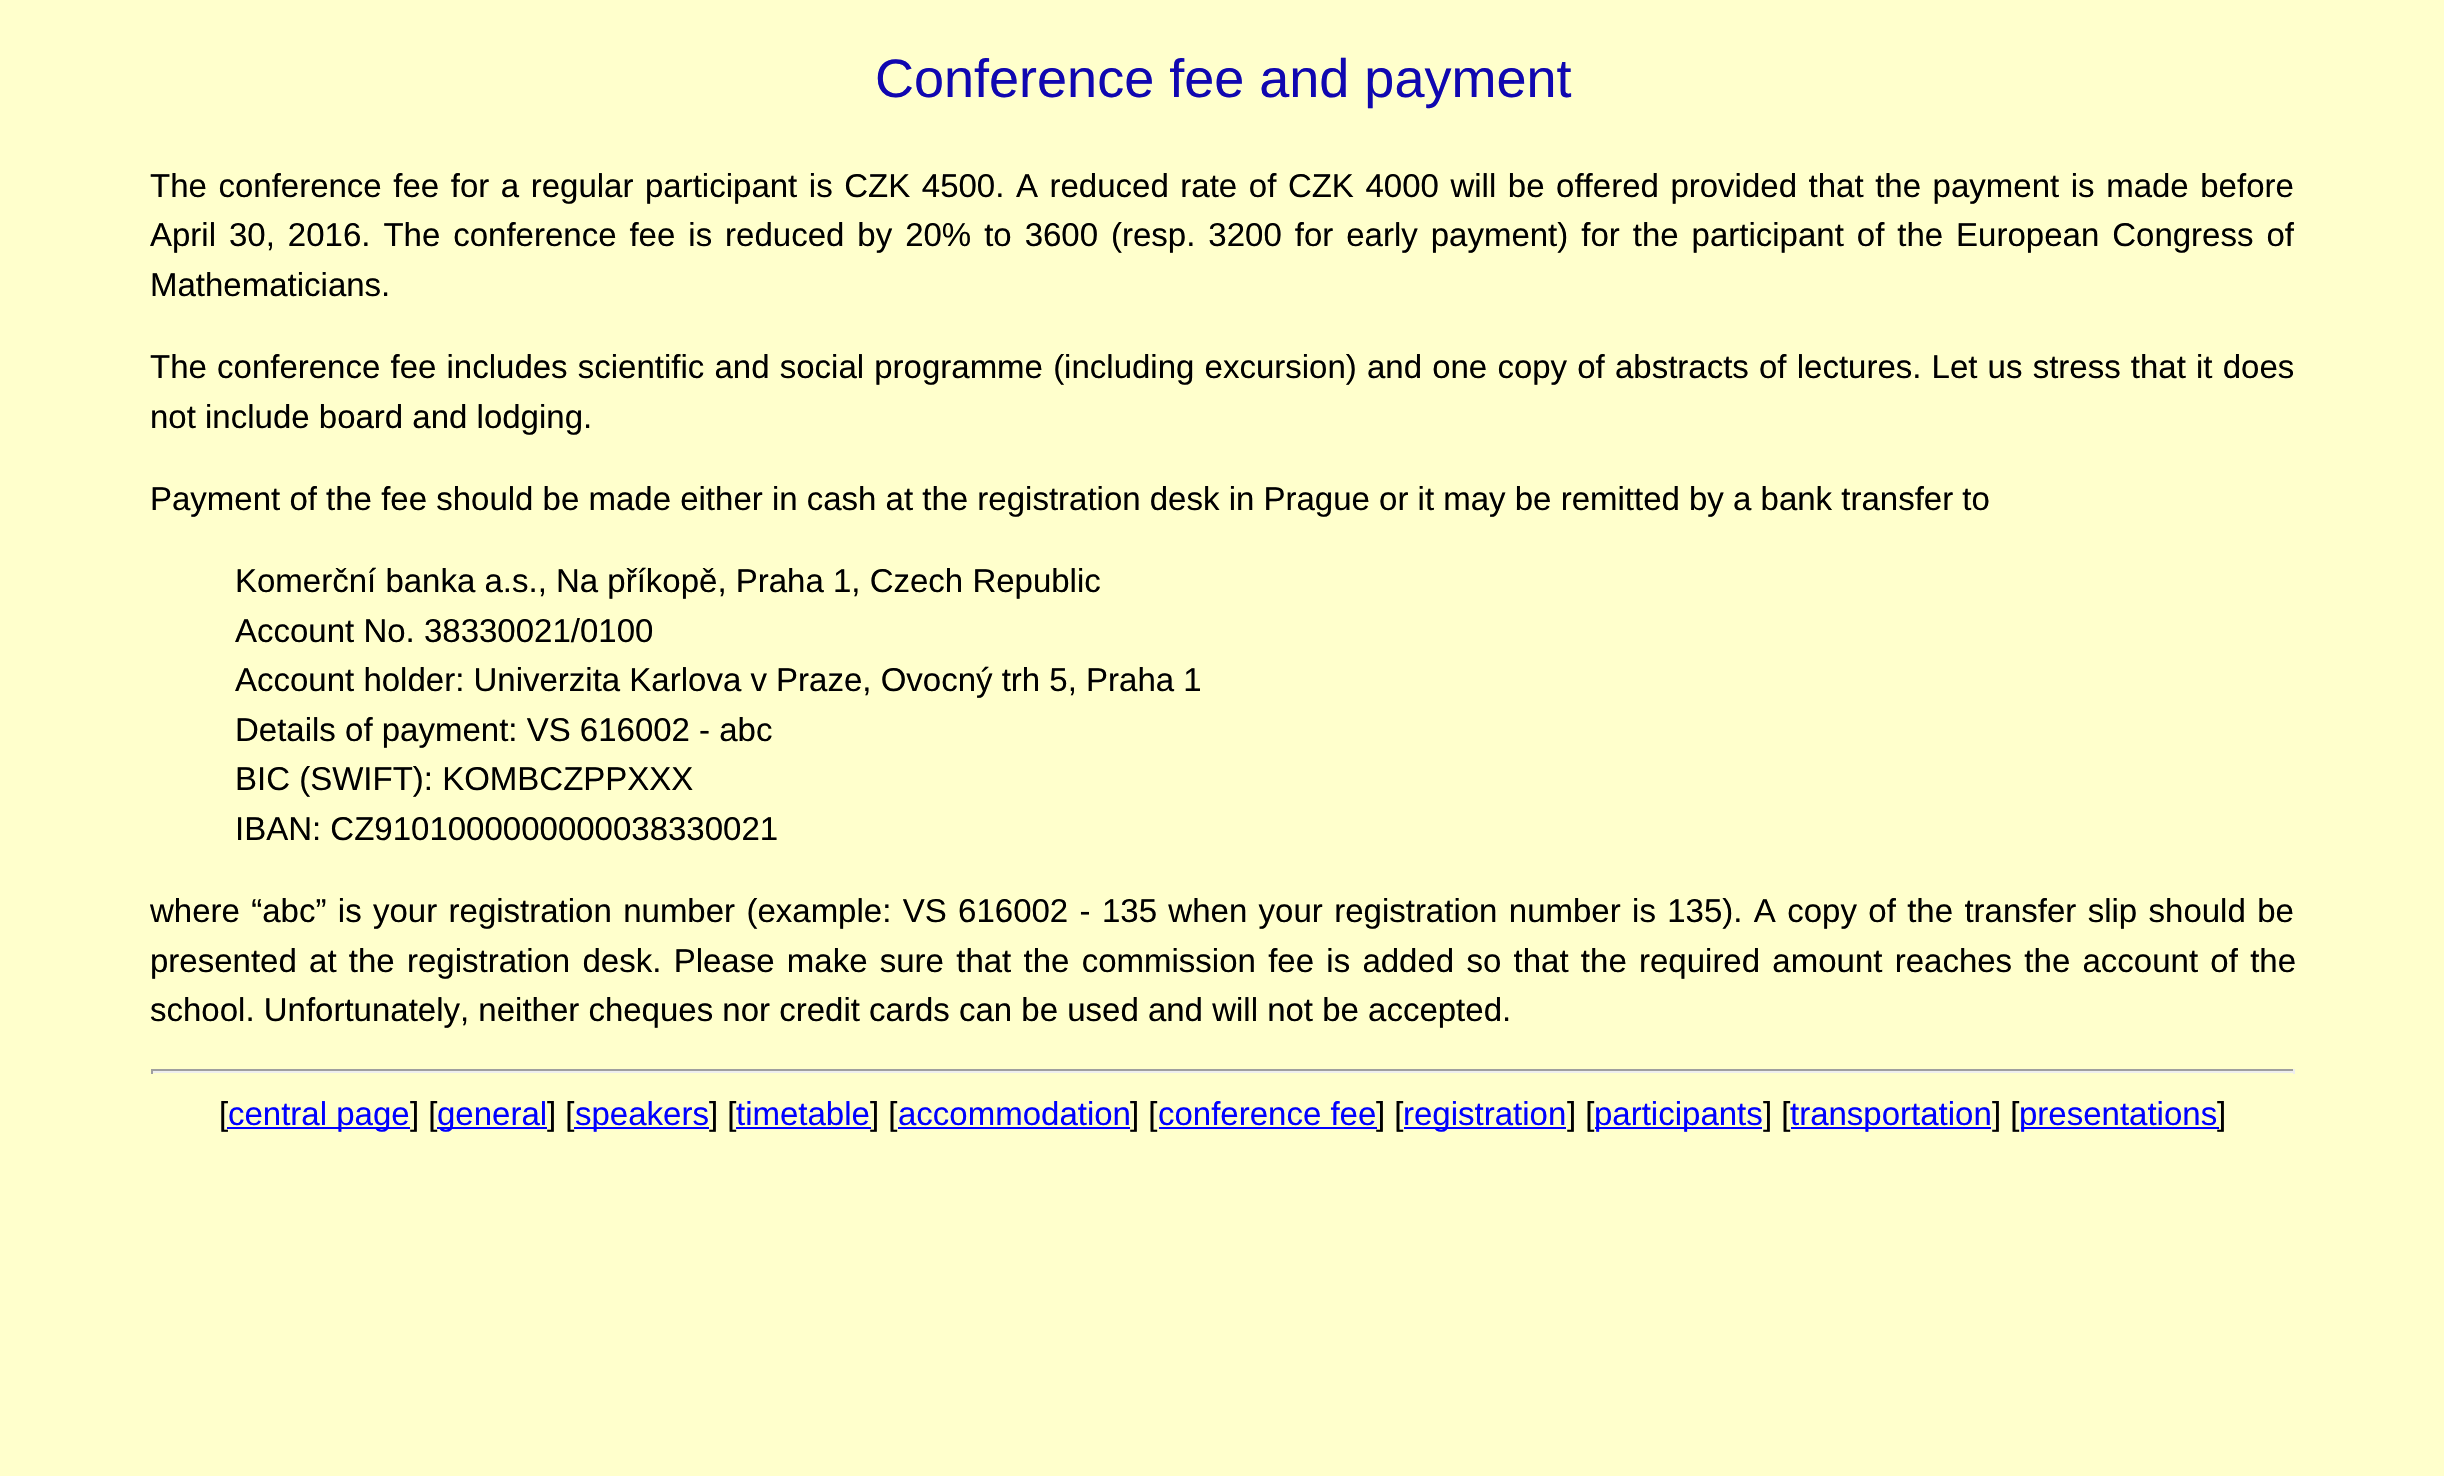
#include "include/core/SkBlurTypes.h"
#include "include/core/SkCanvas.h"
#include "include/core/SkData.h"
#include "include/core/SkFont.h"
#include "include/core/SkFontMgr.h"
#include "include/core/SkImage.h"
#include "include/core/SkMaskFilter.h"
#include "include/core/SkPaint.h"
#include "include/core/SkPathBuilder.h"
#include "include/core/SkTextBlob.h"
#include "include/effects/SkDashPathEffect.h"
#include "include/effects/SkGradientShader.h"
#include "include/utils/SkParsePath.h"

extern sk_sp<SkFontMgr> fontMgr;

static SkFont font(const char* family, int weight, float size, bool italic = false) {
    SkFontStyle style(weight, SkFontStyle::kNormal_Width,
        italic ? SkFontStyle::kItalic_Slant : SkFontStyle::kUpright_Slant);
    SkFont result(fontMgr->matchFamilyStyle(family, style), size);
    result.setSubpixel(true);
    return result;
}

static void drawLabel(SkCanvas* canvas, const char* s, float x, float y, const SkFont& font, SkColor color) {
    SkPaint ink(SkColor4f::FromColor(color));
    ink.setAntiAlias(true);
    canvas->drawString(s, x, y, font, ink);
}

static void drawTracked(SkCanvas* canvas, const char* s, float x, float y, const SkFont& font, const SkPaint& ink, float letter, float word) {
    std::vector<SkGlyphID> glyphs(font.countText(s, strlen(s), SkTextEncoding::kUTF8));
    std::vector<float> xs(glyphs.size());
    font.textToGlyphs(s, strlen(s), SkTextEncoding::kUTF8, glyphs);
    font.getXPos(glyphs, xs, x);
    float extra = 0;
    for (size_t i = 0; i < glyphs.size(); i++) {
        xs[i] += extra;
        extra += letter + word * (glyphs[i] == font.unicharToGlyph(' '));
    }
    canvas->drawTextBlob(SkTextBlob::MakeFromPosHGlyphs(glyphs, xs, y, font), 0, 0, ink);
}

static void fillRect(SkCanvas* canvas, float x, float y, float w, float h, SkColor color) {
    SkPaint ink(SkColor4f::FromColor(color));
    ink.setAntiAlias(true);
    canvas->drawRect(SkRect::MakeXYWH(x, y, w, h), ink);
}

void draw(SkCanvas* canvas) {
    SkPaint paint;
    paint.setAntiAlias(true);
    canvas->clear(0xFFFFFFCC);
    SkFont font1 = font("Liberation Sans", 400, 54);
    drawLabel(canvas, "Conference fee and payment", 875, 97, font1, 0xFF1007B0);
    SkFont font2 = font("Liberation Sans", 400, 33);
    paint.setColor(0xFF000000);
    drawTracked(canvas, "The conference fee for a regular participant is CZK 4500. A reduced rate of CZK 4000 will be offered provided that the payment is made before", 150, 197, font2, paint, 0, 2.4f);
    drawTracked(canvas, "April 30, 2016. The conference fee is reduced by 20% to 3600 (resp. 3200 for early payment) for the participant of the European Congress of", 150, 246, font2, paint, 0, 3.8f);
    drawLabel(canvas, "Mathematicians.", 150, 296, font2, 0xFF000000);
    drawTracked(canvas, "The conference fee includes scientific and social programme (including excursion) and one copy of abstracts of lectures. Let us stress that it does", 150, 378, font2, paint, 0, 1);
    drawLabel(canvas, "not include board and lodging.", 150, 428, font2, 0xFF000000);
    drawLabel(canvas, "Payment of the fee should be made either in cash at the registration desk in Prague or it may be remitted by a bank transfer to", 150, 510, font2, 0xFF000000);
    drawLabel(canvas, "Komerční banka a.s., Na příkopě, Praha 1, Czech Republic", 235, 592, font2, 0xFF000000);
    drawLabel(canvas, "Account No. 38330021/0100", 235, 642, font2, 0xFF000000);
    drawLabel(canvas, "Account holder: Univerzita Karlova v Praze, Ovocný trh 5, Praha 1", 235, 691, font2, 0xFF000000);
    drawLabel(canvas, "Details of payment: VS 616002 - abc", 235, 741, font2, 0xFF000000);
    drawLabel(canvas, "BIC (SWIFT): KOMBCZPPXXX", 235, 790, font2, 0xFF000000);
    drawLabel(canvas, "IBAN: CZ9101000000000038330021", 235, 840, font2, 0xFF000000);
    drawTracked(canvas, "where “abc” is your registration number (example: VS 616002 - 135 when your registration number is 135). A copy of the transfer slip should be", 150, 922, font2, paint, 0, 2.2f);
    drawTracked(canvas, "presented at the registration desk. Please make sure that the commission fee is added so that the required amount reaches the account of the", 150, 972, font2, paint, 0, 3.1f);
    drawLabel(canvas, "school. Unfortunately, neither cheques nor credit cards can be used and will not be accepted.", 150, 1021, font2, 0xFF000000);
    fillRect(canvas, 151, 1069, 2144, 2, 0xFF9F9F9F);
    fillRect(canvas, 2293, 1069, 2, 5, 0xFFEEEEEE);
    fillRect(canvas, 151, 1071, 2144, 2, 0xFFEEEEEE);
    fillRect(canvas, 151, 1069, 2, 5, 0xFF9F9F9F);
    drawLabel(canvas, "[", 219, 1125, font2, 0xFF000000);
    fillRect(canvas, 227, 1127, 183, 2, 0xFF0000FF);
    drawLabel(canvas, "central page", 228, 1125, font2, 0xFF0000FF);
    drawLabel(canvas, "] [", 410, 1125, font2, 0xFF000000);
    fillRect(canvas, 437, 1127, 110, 2, 0xFF0000FF);
    drawLabel(canvas, "general", 437, 1125, font2, 0xFF0000FF);
    drawLabel(canvas, "] [", 547, 1125, font2, 0xFF000000);
    fillRect(canvas, 574, 1127, 135, 2, 0xFF0000FF);
    drawLabel(canvas, "speakers", 575, 1125, font2, 0xFF0000FF);
    drawLabel(canvas, "] [", 709, 1125, font2, 0xFF000000);
    drawLabel(canvas, "timetable", 736, 1125, font2, 0xFF0000FF);
    fillRect(canvas, 736, 1127, 135, 2, 0xFF0000FF);
    drawLabel(canvas, "] [", 870, 1125, font2, 0xFF000000);
    drawLabel(canvas, "accommodation", 898, 1125, font2, 0xFF0000FF);
    fillRect(canvas, 898, 1127, 232, 2, 0xFF0000FF);
    drawLabel(canvas, "] [", 1130, 1125, font2, 0xFF000000);
    drawLabel(canvas, "conference fee", 1158, 1125, font2, 0xFF0000FF);
    fillRect(canvas, 1159, 1127, 218, 2, 0xFF0000FF);
    drawLabel(canvas, "] [", 1376, 1125, font2, 0xFF000000);
    fillRect(canvas, 1404, 1127, 162, 2, 0xFF0000FF);
    drawLabel(canvas, "registration", 1403, 1125, font2, 0xFF0000FF);
    drawLabel(canvas, "] [", 1567, 1125, font2, 0xFF000000);
    fillRect(canvas, 1595, 1127, 167, 2, 0xFF0000FF);
    drawLabel(canvas, "participants", 1594, 1125, font2, 0xFF0000FF);
    drawLabel(canvas, "] [", 1763, 1125, font2, 0xFF000000);
    fillRect(canvas, 1791, 1127, 200, 2, 0xFF0000FF);
    drawLabel(canvas, "transportation", 1790, 1125, font2, 0xFF0000FF);
    drawLabel(canvas, "] [", 1992, 1125, font2, 0xFF000000);
    fillRect(canvas, 2021, 1127, 198, 2, 0xFF0000FF);
    drawLabel(canvas, "presentations", 2019, 1125, font2, 0xFF0000FF);
    drawLabel(canvas, "]", 2217, 1125, font2, 0xFF000000);
}
